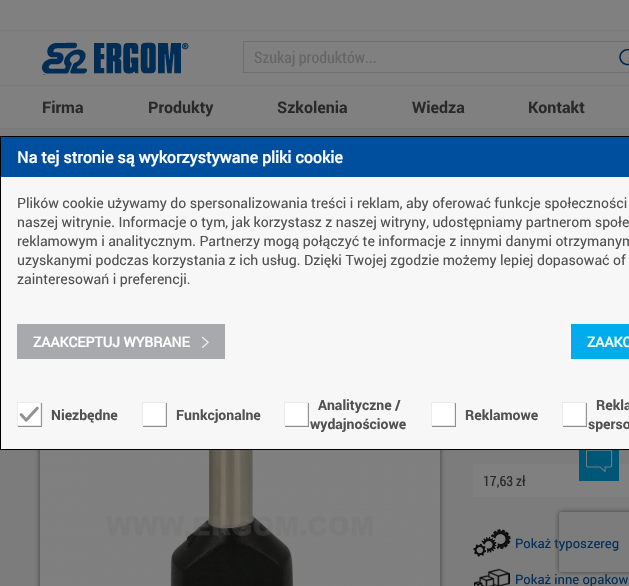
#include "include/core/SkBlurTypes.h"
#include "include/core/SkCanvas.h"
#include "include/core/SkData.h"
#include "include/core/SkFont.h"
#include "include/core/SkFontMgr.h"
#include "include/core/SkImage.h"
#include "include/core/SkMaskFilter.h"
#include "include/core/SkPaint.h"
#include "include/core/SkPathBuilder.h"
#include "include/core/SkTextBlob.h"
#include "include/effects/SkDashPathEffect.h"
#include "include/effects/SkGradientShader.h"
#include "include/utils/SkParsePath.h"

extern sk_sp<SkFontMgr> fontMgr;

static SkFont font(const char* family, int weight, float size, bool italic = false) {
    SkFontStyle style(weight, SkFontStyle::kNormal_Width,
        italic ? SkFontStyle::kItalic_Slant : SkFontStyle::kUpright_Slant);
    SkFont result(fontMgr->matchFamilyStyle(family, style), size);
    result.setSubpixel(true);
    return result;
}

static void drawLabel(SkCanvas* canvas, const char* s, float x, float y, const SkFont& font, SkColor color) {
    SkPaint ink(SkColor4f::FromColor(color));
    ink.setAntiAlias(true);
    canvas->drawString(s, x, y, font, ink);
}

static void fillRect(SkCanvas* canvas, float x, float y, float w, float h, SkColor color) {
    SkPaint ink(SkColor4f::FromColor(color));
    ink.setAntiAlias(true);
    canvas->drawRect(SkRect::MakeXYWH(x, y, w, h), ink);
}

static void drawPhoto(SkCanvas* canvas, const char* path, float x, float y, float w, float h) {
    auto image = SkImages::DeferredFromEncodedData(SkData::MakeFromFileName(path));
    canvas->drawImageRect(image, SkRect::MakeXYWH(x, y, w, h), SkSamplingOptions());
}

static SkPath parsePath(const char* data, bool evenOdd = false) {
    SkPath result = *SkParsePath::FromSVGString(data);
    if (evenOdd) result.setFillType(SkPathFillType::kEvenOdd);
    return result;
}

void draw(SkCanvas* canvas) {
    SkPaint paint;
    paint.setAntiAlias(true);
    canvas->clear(0xFF7C7C7C);
    fillRect(canvas, 0, 0, 629, 128, 0xFF808080);
    fillRect(canvas, 0, 128, 629, 1, 0xFF797979);
    fillRect(canvas, 0, 30, 629, 1, 0xFF797979);
    fillRect(canvas, 0, 85, 629, 1, 0xFF797979);
    drawPhoto(canvas, "assets/img1.png", 42, 42, 147, 33);
    paint.setStroke(true);
    paint.setStrokeWidth(1);
    paint.setColor(0xFF6F6F6F);
    canvas->drawRect(SkRect::MakeXYWH(243.5f, 41.5f, 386, 31), paint);
    SkFont font1 = font("Roboto Condensed", 400, 16);
    drawLabel(canvas, "Szukaj produktów...", 254, 63, font1, 0xFF656565);
    drawPhoto(canvas, "assets/img2.png", 619, 49, 10, 17);
    SkFont font2 = font("Roboto", 700, 16);
    drawLabel(canvas, "Firma", 42, 113, font2, 0xFF292929);
    drawLabel(canvas, "Produkty", 148, 113, font2, 0xFF292929);
    drawLabel(canvas, "Szkolenia", 277, 113, font2, 0xFF292929);
    drawLabel(canvas, "Wiedza", 412, 113, font2, 0xFF292929);
    drawLabel(canvas, "Kontakt", 528, 113, font2, 0xFF292929);
    paint.setStroke(false);
    paint.setColor(0x80000000);
    paint.setMaskFilter(SkMaskFilter::MakeBlur(kNormal_SkBlurStyle, 2.5f));
    canvas->drawRect(SkRect::MakeXYWH(40, 321, 400, 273), paint);
    paint.setMaskFilter(nullptr);
    drawPhoto(canvas, "assets/img3.png", 40, 450, 400, 136);
    fillRect(canvas, 473, 464, 156, 33, 0xFF808080);
    SkFont font3 = font("Roboto Condensed", 400, 14);
    drawLabel(canvas, "17,63 zł", 483, 486, font3, 0xFF292929);
    drawPhoto(canvas, "assets/img4.png", 473, 529, 38, 28);
    SkFont font4 = font("Roboto", 400, 13);
    drawLabel(canvas, "Pokaż typoszereg", 515, 548, font4, 0xFF002D56);
    drawPhoto(canvas, "assets/img5.png", 474, 568, 36, 18);
    drawLabel(canvas, "Pokaż inne opakow", 515, 584, font4, 0xFF002D56);
    fillRect(canvas, 1, 177, 628, 272, 0xFFF7F7F7);
    paint.setStroke(true);
    paint.setColor(0xFF000000);
    canvas->drawRect(SkRect::MakeXYWH(0.5f, 136.5f, 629, 313), paint);
    fillRect(canvas, 1, 137, 628, 40, 0xFF004F9E);
    SkFont font5 = font("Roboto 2", 700, 16);
    drawLabel(canvas, "Na tej stronie są wykorzystywane pliki cookie", 17, 163, font5, 0xFFFFFFFF);
    SkFont font6 = font("Roboto", 400, 14);
    drawLabel(canvas, "Plików cookie używamy do spersonalizowania treści i reklam, aby oferować funkcje społeczności", 17, 208, font6, 0xFF515151);
    drawLabel(canvas, "naszej witrynie. Informacje o tym, jak korzystasz z naszej witryny, udostępniamy partnerom społe", 17, 227, font6, 0xFF515151);
    drawLabel(canvas, "reklamowym i analitycznym. Partnerzy mogą połączyć te informacje z innymi danymi otrzymanym", 17, 246, font6, 0xFF515151);
    drawLabel(canvas, "uzyskanymi podczas korzystania z ich usług. Dzięki Twojej zgodzie możemy lepiej dopasować of", 17, 265, font6, 0xFF515151);
    drawLabel(canvas, "zainteresowań i preferencji.", 17, 284, font6, 0xFF515151);
    fillRect(canvas, 17, 324, 208, 35, 0xFFA7A9AC);
    SkFont font7 = font("Roboto 2", 700, 14);
    drawLabel(canvas, "ZAAKCEPTUJ WYBRANE", 33, 347, font7, 0xFFFFFFFF);
    drawPhoto(canvas, "assets/img6.png", 202, 336, 7, 12);
    fillRect(canvas, 571, 324, 58, 35, 0xFF00ACEE);
    drawLabel(canvas, "ZAAKC", 587, 347, font7, 0xFFFFFFFF);
    drawPhoto(canvas, "assets/img7.png", 17, 402, 26, 25);
    drawPhoto(canvas, "assets/img8.png", 18, 403, 24, 24);
    SkFont font8 = font("Roboto", 700, 14);
    drawLabel(canvas, "Niezbędne", 51, 420, font8, 0xFF515151);
    drawPhoto(canvas, "assets/img9.png", 142, 402, 25, 25);
    drawPhoto(canvas, "assets/img10.png", 143, 403, 24, 24);
    drawLabel(canvas, "Funkcjonalne", 176, 420, font8, 0xFF515151);
    drawPhoto(canvas, "assets/img9.png", 284, 402, 25, 25);
    drawPhoto(canvas, "assets/img10.png", 285, 403, 24, 24);
    drawLabel(canvas, "Analityczne /", 318, 410, font8, 0xFF515151);
    drawLabel(canvas, "wydajnościowe", 310, 429, font8, 0xFF515151);
    drawPhoto(canvas, "assets/img9.png", 431, 402, 25, 25);
    drawPhoto(canvas, "assets/img10.png", 432, 403, 24, 24);
    drawLabel(canvas, "Reklamowe", 465, 420, font8, 0xFF515151);
    drawPhoto(canvas, "assets/img9.png", 562, 402, 25, 25);
    drawPhoto(canvas, "assets/img10.png", 563, 403, 24, 24);
    drawLabel(canvas, "Rekla", 596, 410, font8, 0xFF515151);
    drawLabel(canvas, "sperso", 588, 429, font8, 0xFF515151);
    fillRect(canvas, 579, 450, 40, 31, 0xFF005677);
    drawPhoto(canvas, "assets/img11.png", 586, 450, 27, 22);
    canvas->save();
    canvas->clipPath(parsePath("M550 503H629V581H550ZM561 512H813C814 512 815 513 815 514V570C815 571 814 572 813 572H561C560 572 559 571 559 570V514C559 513 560 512 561 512Z", true), true);
    paint.setStroke(false);
    paint.setColor(0xFF404040);
    paint.setMaskFilter(SkMaskFilter::MakeBlur(kNormal_SkBlurStyle, 2.5f));
    canvas->drawRoundRect(SkRect::MakeXYWH(559, 512, 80, 60), 2, 2, paint);
    paint.setMaskFilter(nullptr);
    canvas->restore();
}
